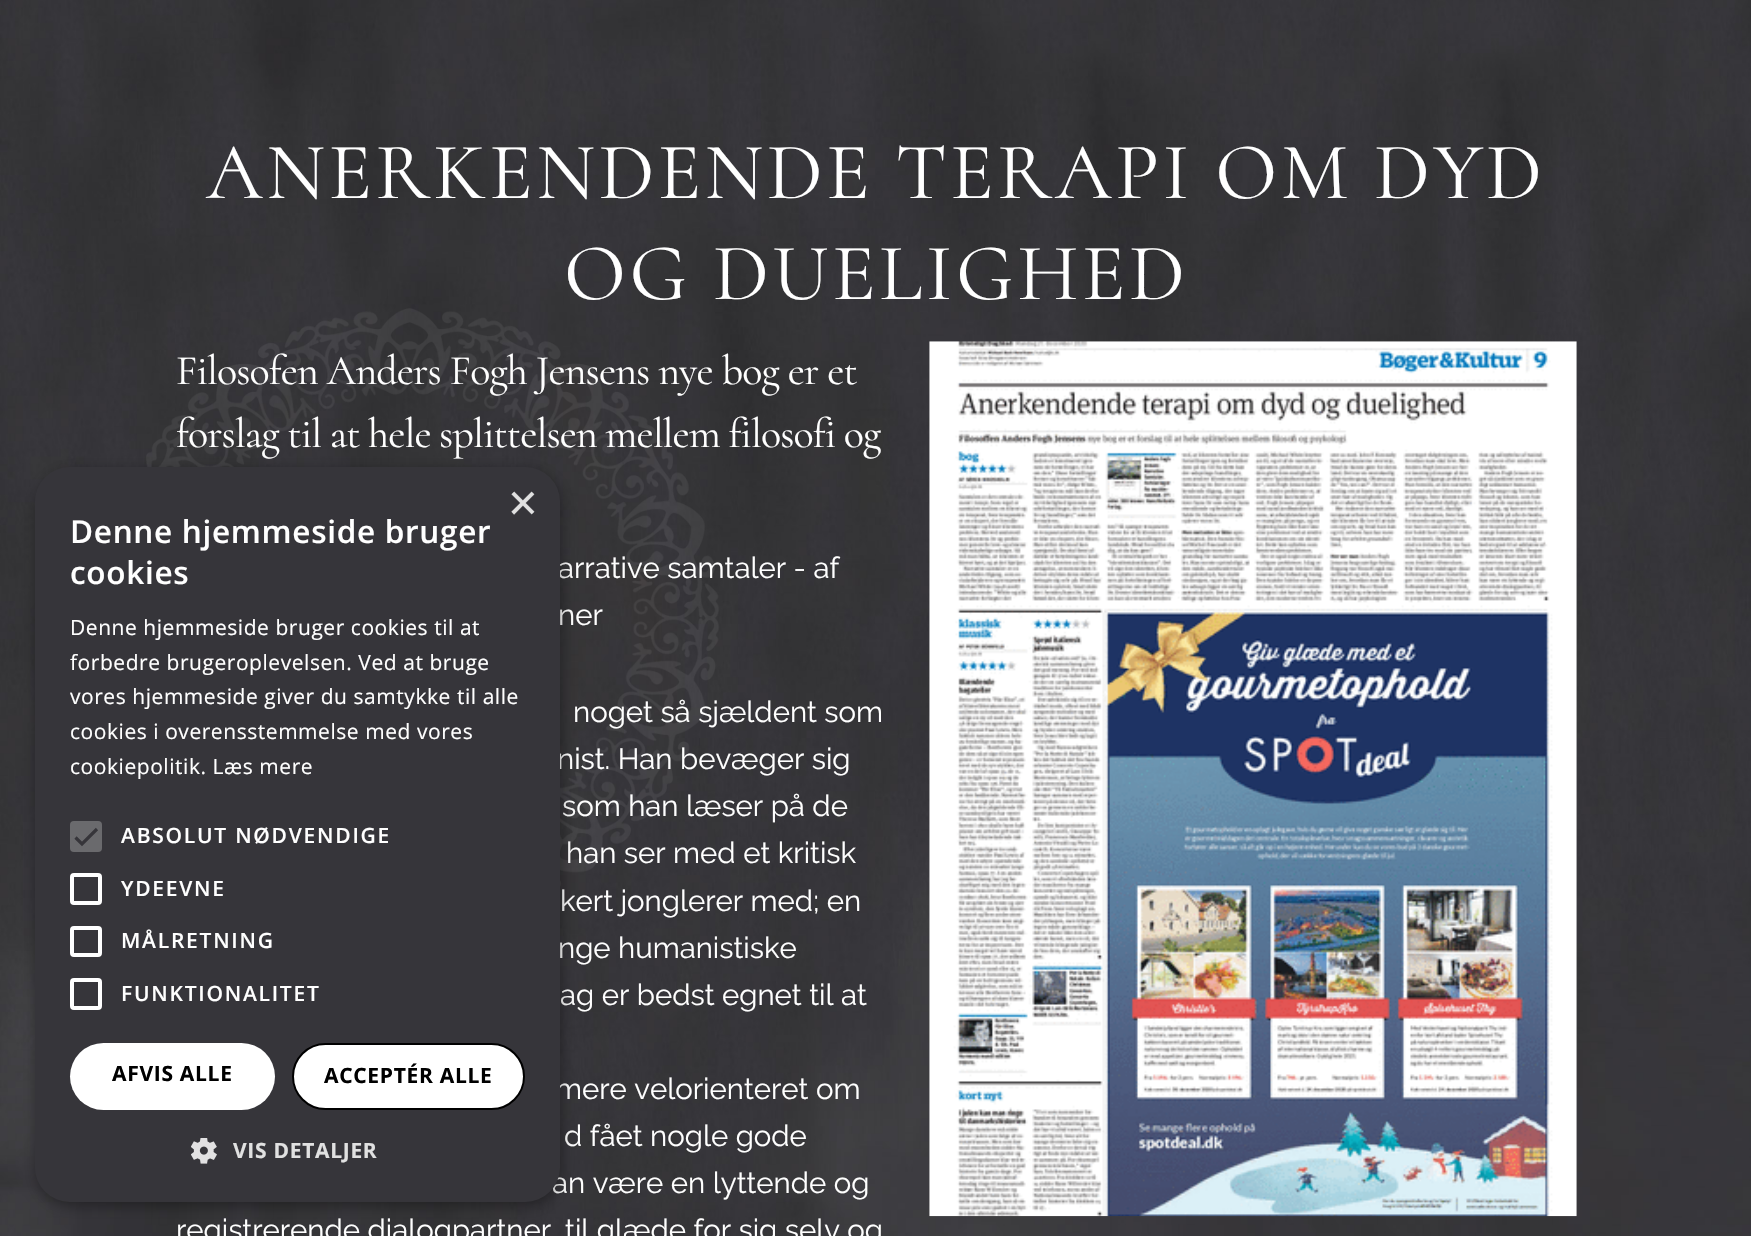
#include "include/core/SkBlurTypes.h"
#include "include/core/SkCanvas.h"
#include "include/core/SkData.h"
#include "include/core/SkFont.h"
#include "include/core/SkFontMgr.h"
#include "include/core/SkImage.h"
#include "include/core/SkMaskFilter.h"
#include "include/core/SkPaint.h"
#include "include/core/SkPathBuilder.h"
#include "include/core/SkTextBlob.h"
#include "include/effects/SkDashPathEffect.h"
#include "include/effects/SkGradientShader.h"
#include "include/utils/SkParsePath.h"

extern sk_sp<SkFontMgr> fontMgr;

static SkFont font(const char* family, int weight, float size, bool italic = false) {
    SkFontStyle style(weight, SkFontStyle::kNormal_Width,
        italic ? SkFontStyle::kItalic_Slant : SkFontStyle::kUpright_Slant);
    SkFont result(fontMgr->matchFamilyStyle(family, style), size);
    result.setSubpixel(true);
    return result;
}

static void drawLabel(SkCanvas* canvas, const char* s, float x, float y, const SkFont& font, SkColor color) {
    SkPaint ink(SkColor4f::FromColor(color));
    ink.setAntiAlias(true);
    canvas->drawString(s, x, y, font, ink);
}

static void drawTracked(SkCanvas* canvas, const char* s, float x, float y, const SkFont& font, const SkPaint& ink, float letter, float word) {
    std::vector<SkGlyphID> glyphs(font.countText(s, strlen(s), SkTextEncoding::kUTF8));
    std::vector<float> xs(glyphs.size());
    font.textToGlyphs(s, strlen(s), SkTextEncoding::kUTF8, glyphs);
    font.getXPos(glyphs, xs, x);
    float extra = 0;
    for (size_t i = 0; i < glyphs.size(); i++) {
        xs[i] += extra;
        extra += letter + word * (glyphs[i] == font.unicharToGlyph(' '));
    }
    canvas->drawTextBlob(SkTextBlob::MakeFromPosHGlyphs(glyphs, xs, y, font), 0, 0, ink);
}

static void fillRRect(SkCanvas* canvas, float x, float y, float w, float h, float radius, SkColor color) {
    SkPaint ink(SkColor4f::FromColor(color));
    ink.setAntiAlias(true);
    canvas->drawRoundRect(SkRect::MakeXYWH(x, y, w, h), radius, radius, ink);
}

static void drawPhoto(SkCanvas* canvas, const char* path, float x, float y, float w, float h) {
    auto image = SkImages::DeferredFromEncodedData(SkData::MakeFromFileName(path));
    canvas->drawImageRect(image, SkRect::MakeXYWH(x, y, w, h), SkSamplingOptions());
}

static SkPath parsePath(const char* data, bool evenOdd = false) {
    SkPath result = *SkParsePath::FromSVGString(data);
    if (evenOdd) result.setFillType(SkPathFillType::kEvenOdd);
    return result;
}

void draw(SkCanvas* canvas) {
    SkPaint paint;
    paint.setAntiAlias(true);
    canvas->clear(0xFFFFFFFF);
    drawPhoto(canvas, "assets/img1.png", 0, 0, 1751, 1236);
    SkFont font1 = font("Cormorant", 400, 80.8f);
    paint.setColor(0xFFFFFFFF);
    drawTracked(canvas, "ANERKENDENDE TERAPI OM DYD", 206, 198, font1, paint, 3.5f, 0);
    drawTracked(canvas, "OG DUELIGHED", 564, 299, font1, paint, 3.5f, 0);
    SkFont font2 = font("Cormorant", 400, 42);
    drawTracked(canvas, "Filosofen Anders Fogh Jensens nye bog er et", 176, 384, font2, paint, -0.88f, 0);
    drawTracked(canvas, "forslag til at hele splittelsen mellem filosofi og", 176, 447, font2, paint, -0.88f, -0.5f);
    SkFont font3 = font("Raleway", 400, 29.4f);
    drawLabel(canvas, "arrative samtaler - af", 558, 578, font3, 0xFFFFFFFF);
    drawLabel(canvas, "ner", 558, 625, font3, 0xFFFFFFFF);
    drawLabel(canvas, "noget så sjældent som", 573, 722, font3, 0xFFFFFFFF);
    drawLabel(canvas, "nist. Han bevæger sig", 557, 769, font3, 0xFFFFFFFF);
    drawLabel(canvas, "som han læser på de", 562, 816, font3, 0xFFFFFFFF);
    drawLabel(canvas, "han ser med et kritisk", 566, 863, font3, 0xFFFFFFFF);
    drawLabel(canvas, "kert jonglerer med; en", 560, 911, font3, 0xFFFFFFFF);
    drawLabel(canvas, "nge humanistiske", 558, 958, font3, 0xFFFFFFFF);
    drawLabel(canvas, "ag er bedst egnet til at", 560, 1005, font3, 0xFFFFFFFF);
    drawLabel(canvas, "mere velorienteret om", 555, 1099, font3, 0xFFFFFFFF);
    drawLabel(canvas, "d fået nogle gode", 564, 1146, font3, 0xFFFFFFFF);
    drawLabel(canvas, "an være en lyttende og", 552, 1193, font3, 0xFFFFFFFF);
    drawLabel(canvas, "registrerende dialogpartner, til glæde for sig selv og", 176, 1240, font3, 0xFFFFFFFF);
    drawPhoto(canvas, "assets/img2.png", 929, 341, 648, 876);
    paint.setColor(0x59000000);
    paint.setMaskFilter(SkMaskFilter::MakeBlur(kNormal_SkBlurStyle, 7));
    canvas->drawRoundRect(SkRect::MakeXYWH(37, 471, 525, 735), 35, 35, paint);
    paint.setMaskFilter(nullptr);
    fillRRect(canvas, 35, 467, 525, 735, 35, 0xFF36353A);
    SkFont font4 = font("Liberation Sans", 400, 51);
    drawLabel(canvas, "×", 508, 520, font4, 0xFFE1E1E1);
    SkFont font5 = font("Open Sans", 600, 31.5f);
    paint.setColor(0xFFFFFFFF);
    drawTracked(canvas, "Denne hjemmeside bruger", 70, 543, font5, paint, 0.7f, 0);
    drawTracked(canvas, "cookies", 70, 584, font5, paint, 0.7f, 0);
    SkFont font6 = font("Open Sans", 400, 21);
    drawTracked(canvas, "Denne hjemmeside bruger cookies til at", 70, 635, font6, paint, 0.55f, 0);
    drawTracked(canvas, "forbedre brugeroplevelsen. Ved at bruge", 70, 670, font6, paint, 0.55f, 0);
    drawTracked(canvas, "vores hjemmeside giver du samtykke til alle", 70, 704, font6, paint, 0.55f, 0);
    drawTracked(canvas, "cookies i overensstemmelse med vores", 70, 739, font6, paint, 0.55f, 0);
    drawTracked(canvas, "cookiepolitik. Læs mere", 70, 774, font6, paint, 0.55f, 0);
    fillRRect(canvas, 70, 821, 32, 31, 4, 0xFF6A6A6D);
    paint.setStroke(true);
    paint.setStrokeWidth(3.2f);
    paint.setColor(0xFF36353A);
    canvas->drawPath(parsePath("M75.5 837.5L82 844L97 829"), paint);
    SkFont font7 = font("Open Sans", 600, 21);
    paint.setStroke(false);
    paint.setColor(0xFFFFFFFF);
    drawTracked(canvas, "ABSOLUT NØDVENDIGE", 121, 843, font7, paint, 1.75f, 0);
    paint.setStroke(true);
    paint.setStrokeWidth(4);
    canvas->drawRoundRect(SkRect::MakeXYWH(72, 875, 28, 28), 2, 2, paint);
    paint.setStroke(false);
    drawTracked(canvas, "YDEEVNE", 121, 896, font7, paint, 1.75f, 0);
    paint.setStroke(true);
    canvas->drawRoundRect(SkRect::MakeXYWH(72, 928, 28, 27), 2, 2, paint);
    paint.setStroke(false);
    drawTracked(canvas, "MÅLRETNING", 121, 948, font7, paint, 1.75f, 0);
    paint.setStroke(true);
    canvas->drawRoundRect(SkRect::MakeXYWH(72, 980, 28, 28), 2, 2, paint);
    paint.setStroke(false);
    drawTracked(canvas, "FUNKTIONALITET", 121, 1001, font7, paint, 1.75f, 0);
    fillRRect(canvas, 70, 1043, 205, 67, 33.5f, 0xFFFFFFFF);
    SkFont font8 = font("Open Sans", 700, 21);
    paint.setColor(0xFF000000);
    drawTracked(canvas, "AFVIS ALLE", 112, 1081, font8, paint, 0.7f, 0);
    paint.setColor(0xFFFFFFFF);
    canvas->drawRoundRect(SkRect::MakeXYWH(293, 1044, 231, 65), 32.5f, 32.5f, paint);
    paint.setStroke(true);
    paint.setStrokeWidth(2);
    paint.setColor(0xFF000000);
    canvas->drawRoundRect(SkRect::MakeXYWH(293, 1044, 231, 65), 32.5f, 32.5f, paint);
    paint.setStroke(false);
    drawTracked(canvas, "ACCEPTÉR ALLE", 324, 1083, font8, paint, 0.7f, 0);
    drawPhoto(canvas, "assets/img3.png", 191, 1138, 26, 26);
    paint.setColor(0xFFE1E1E1);
    drawTracked(canvas, "VIS DETALJER", 233, 1158, font8, paint, 0.7f, 0);
}
